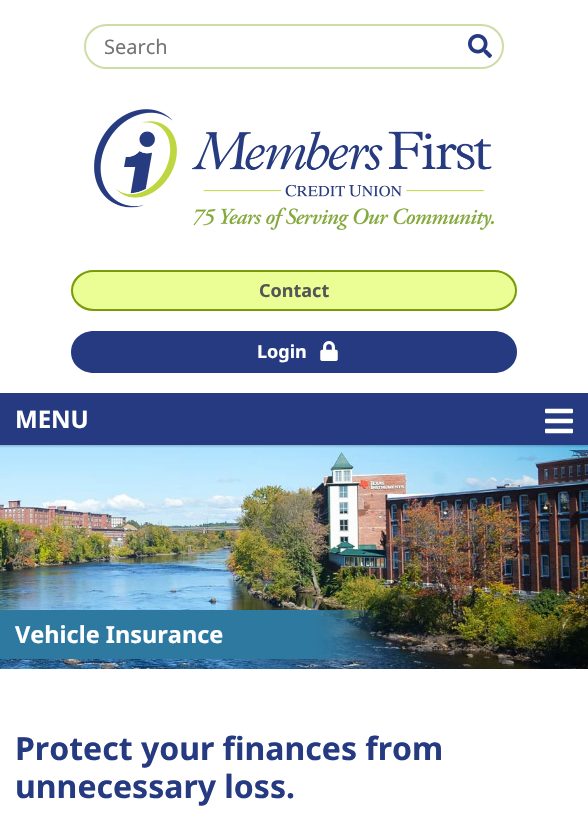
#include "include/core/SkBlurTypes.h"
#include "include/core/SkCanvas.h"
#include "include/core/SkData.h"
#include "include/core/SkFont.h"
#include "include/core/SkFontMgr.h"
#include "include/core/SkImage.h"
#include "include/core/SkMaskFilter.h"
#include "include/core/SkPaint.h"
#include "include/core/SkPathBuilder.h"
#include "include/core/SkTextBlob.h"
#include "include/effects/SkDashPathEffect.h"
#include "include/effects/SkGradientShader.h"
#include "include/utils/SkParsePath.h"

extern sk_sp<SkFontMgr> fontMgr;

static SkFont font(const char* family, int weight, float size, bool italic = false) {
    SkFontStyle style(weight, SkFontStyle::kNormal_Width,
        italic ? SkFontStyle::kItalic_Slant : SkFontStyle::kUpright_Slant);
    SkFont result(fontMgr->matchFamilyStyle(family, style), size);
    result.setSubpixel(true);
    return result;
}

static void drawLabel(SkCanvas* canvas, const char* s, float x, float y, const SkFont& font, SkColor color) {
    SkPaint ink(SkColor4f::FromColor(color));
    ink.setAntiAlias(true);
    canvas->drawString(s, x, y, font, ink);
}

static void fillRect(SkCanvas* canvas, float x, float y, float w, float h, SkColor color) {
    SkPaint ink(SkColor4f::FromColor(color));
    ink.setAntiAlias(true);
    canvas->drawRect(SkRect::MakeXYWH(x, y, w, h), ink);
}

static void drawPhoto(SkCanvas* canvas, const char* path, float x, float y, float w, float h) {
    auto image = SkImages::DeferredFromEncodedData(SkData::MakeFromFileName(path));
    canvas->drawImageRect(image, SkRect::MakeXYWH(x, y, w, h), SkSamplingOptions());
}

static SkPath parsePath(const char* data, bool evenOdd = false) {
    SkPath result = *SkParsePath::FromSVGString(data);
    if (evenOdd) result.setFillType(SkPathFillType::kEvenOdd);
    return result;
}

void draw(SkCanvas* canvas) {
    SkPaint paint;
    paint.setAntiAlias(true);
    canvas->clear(0xFFFFFFFF);
    paint.setStroke(true);
    paint.setStrokeWidth(2);
    paint.setColor(0xFFCEDCA5);
    canvas->drawRoundRect(SkRect::MakeXYWH(85, 25, 418, 43), 21.5f, 21.5f, paint);
    SkFont font1 = font("Noto Sans", 400, 20);
    drawLabel(canvas, "Search", 104, 54, font1, 0xFF747474);
    drawPhoto(canvas, "assets/img1.png", 468, 34, 24, 24);
    drawPhoto(canvas, "assets/img2.png", 94, 109, 400, 121);
    paint.setStroke(false);
    paint.setColor(0xFFEBFD95);
    canvas->drawPath(parsePath("M94 270H494C507 270 517 279 517 290C517 302 507 311 494 311H94C81 311 71 302 71 290C71 279 81 270 94 270Z"), paint);
    paint.setStroke(true);
    paint.setColor(0xFF779B0A);
    canvas->drawPath(parsePath("M94 271H494C506 271 516 279.5 516 290.5C516 301.5 506 310 494 310H94C82 310 72 301.5 72 290.5C72 279.5 82 271 94 271Z"), paint);
    SkFont font2 = font("Noto Sans", 700, 18);
    drawLabel(canvas, "Contact", 259, 297, font2, 0xFF555555);
    paint.setStroke(false);
    paint.setColor(0xFF253A80);
    canvas->drawPath(parsePath("M94 331H494C507 331 517 340 517 352C517 364 507 373 494 373H94C81 373 71 364 71 352C71 340 81 331 94 331Z"), paint);
    drawLabel(canvas, "Login", 257, 358, font2, 0xFFFFFFFF);
    drawPhoto(canvas, "assets/img3.png", 320, 341, 18, 20);
    fillRect(canvas, 0, 393, 588, 52, 0xFF253A80);
    SkFont font3 = font("Noto Sans", 700, 24);
    drawLabel(canvas, "MENU", 15, 428, font3, 0xFFFFFFFF);
    drawPhoto(canvas, "assets/img4.png", 545, 408, 28, 26);
    drawPhoto(canvas, "assets/img5.png", 0, 445, 588, 224);
    drawPhoto(canvas, "assets/img6.png", 0, 610, 384, 49);
    SkFont font4 = font("Noto Sans", 700, 23.5f);
    drawLabel(canvas, "Vehicle Insurance", 15, 643, font4, 0xFFFFFFFF);
    SkFont font5 = font("Noto Sans", 700, 32);
    drawLabel(canvas, "Protect your finances from", 15, 760, font5, 0xFF253A80);
    drawLabel(canvas, "unnecessary loss.", 15, 798, font5, 0xFF253A80);
}
